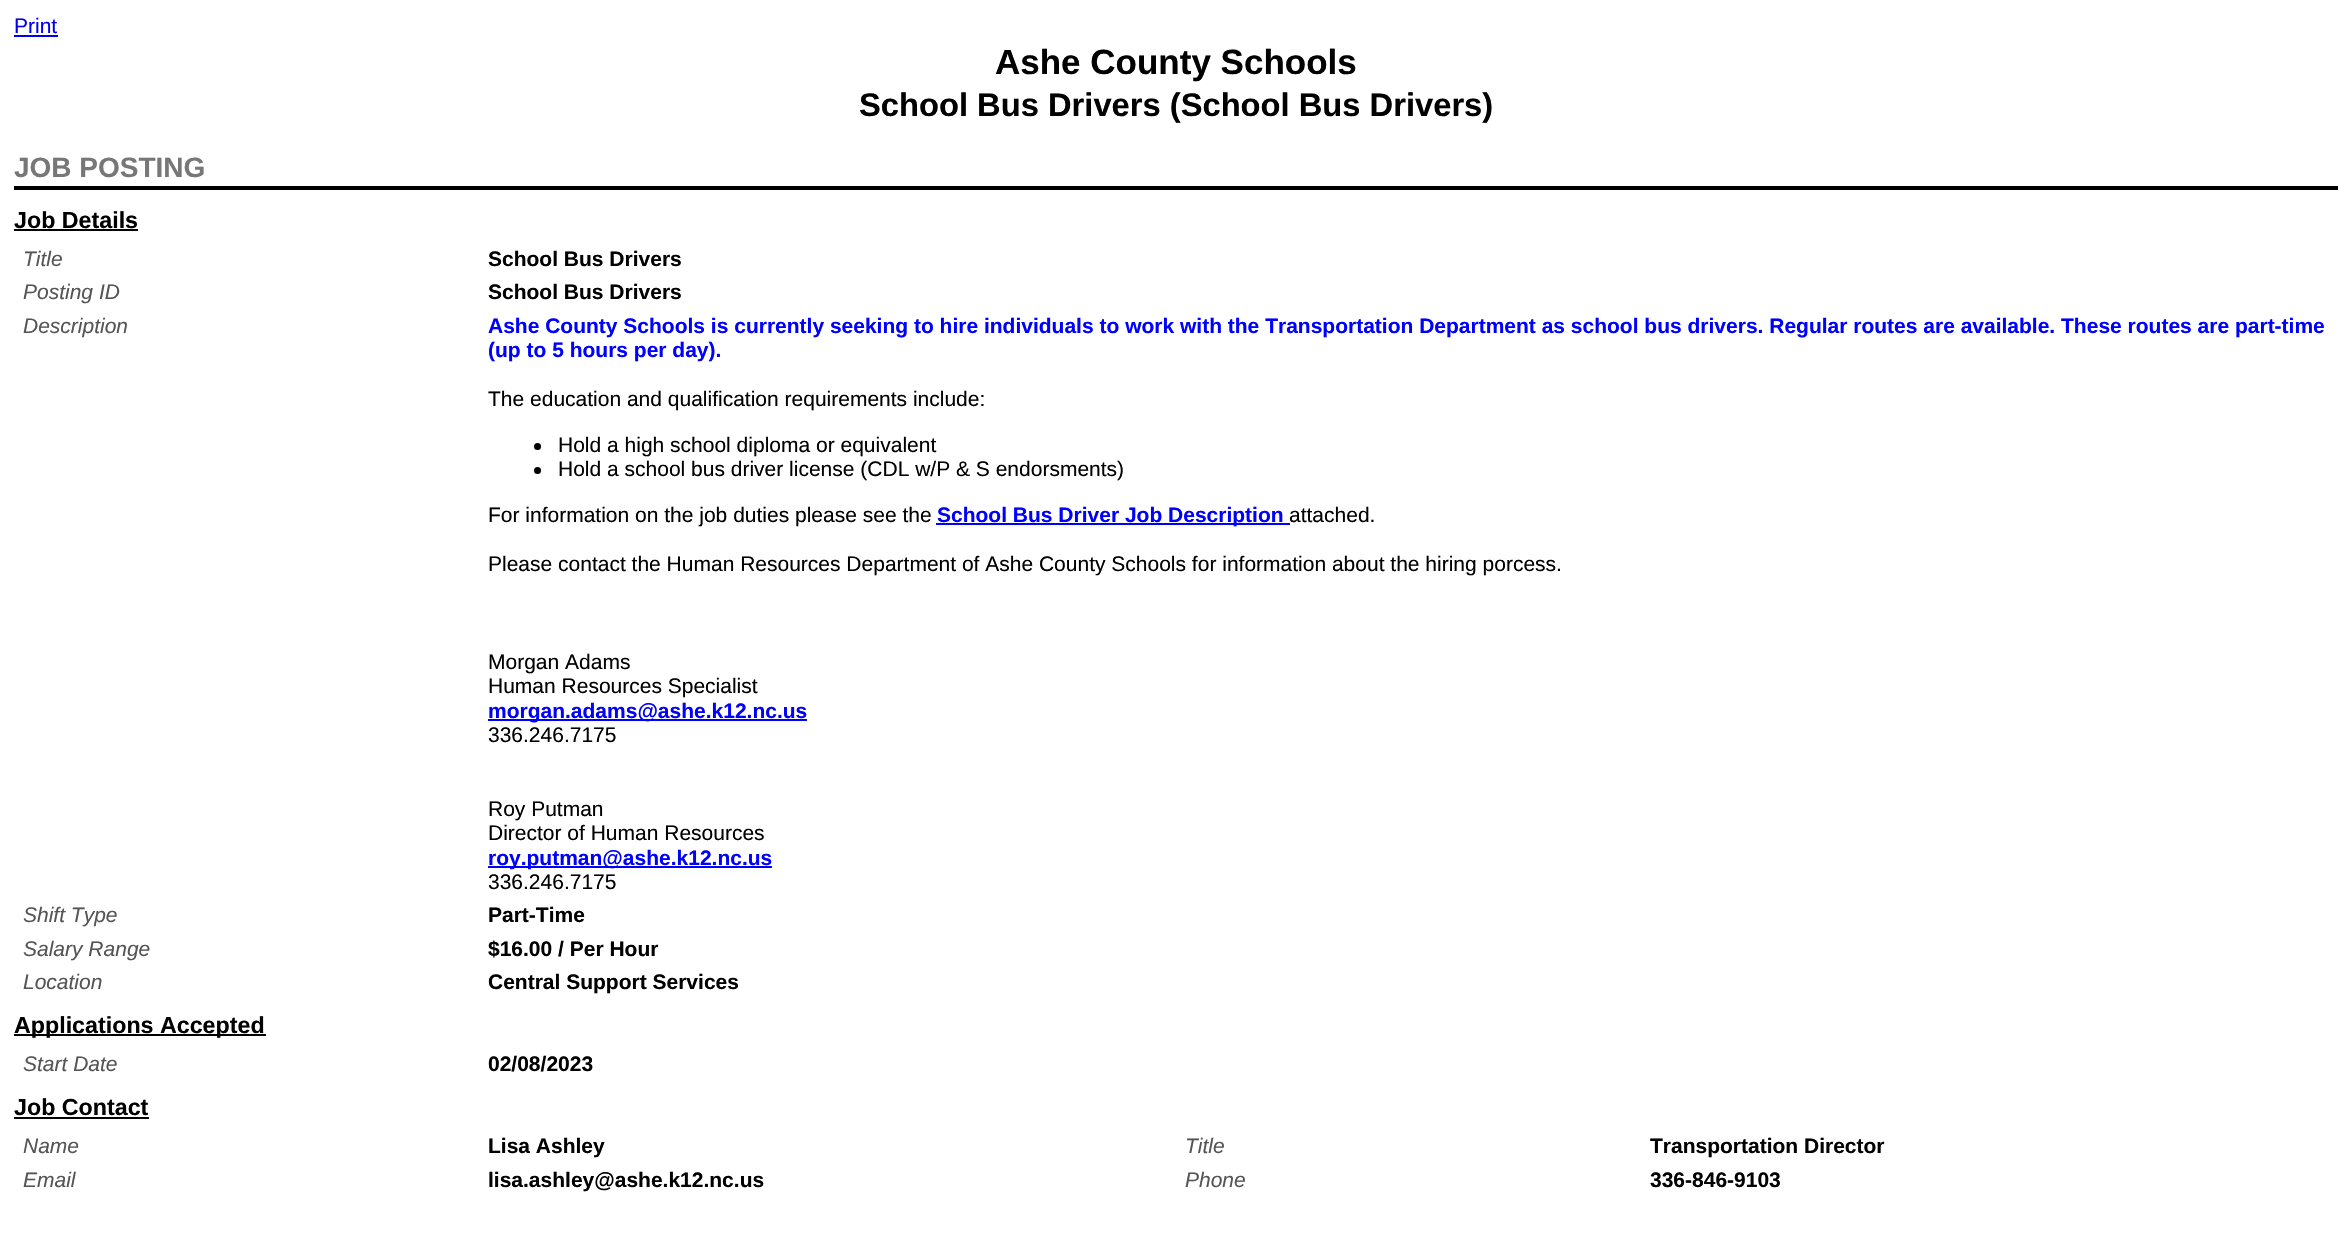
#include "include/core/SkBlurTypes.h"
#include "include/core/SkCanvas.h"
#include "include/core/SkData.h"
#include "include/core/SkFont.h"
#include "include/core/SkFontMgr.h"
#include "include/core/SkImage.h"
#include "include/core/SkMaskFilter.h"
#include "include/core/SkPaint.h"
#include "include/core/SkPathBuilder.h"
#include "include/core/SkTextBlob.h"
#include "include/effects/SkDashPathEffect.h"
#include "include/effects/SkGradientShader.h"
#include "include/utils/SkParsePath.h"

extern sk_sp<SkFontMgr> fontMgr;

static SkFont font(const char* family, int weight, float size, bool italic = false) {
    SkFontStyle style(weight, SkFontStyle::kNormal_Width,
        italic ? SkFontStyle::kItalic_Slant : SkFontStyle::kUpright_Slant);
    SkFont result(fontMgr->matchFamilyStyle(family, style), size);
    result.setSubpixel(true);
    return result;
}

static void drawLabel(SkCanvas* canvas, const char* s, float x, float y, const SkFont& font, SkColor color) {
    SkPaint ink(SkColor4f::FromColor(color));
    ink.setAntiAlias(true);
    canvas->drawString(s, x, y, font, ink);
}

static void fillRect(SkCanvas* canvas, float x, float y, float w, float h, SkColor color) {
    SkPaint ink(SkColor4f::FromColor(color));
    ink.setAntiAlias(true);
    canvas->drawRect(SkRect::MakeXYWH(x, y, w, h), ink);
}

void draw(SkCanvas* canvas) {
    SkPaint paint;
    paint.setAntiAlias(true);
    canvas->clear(0xFFFFFFFF);
    SkFont font1 = font("Liberation Sans", 400, 21);
    drawLabel(canvas, "Print", 14, 33, font1, 0xFF0000EE);
    fillRect(canvas, 14, 35, 44, 2, 0xFF0000EE);
    SkFont font2 = font("Liberation Sans", 700, 35);
    drawLabel(canvas, "Ashe County Schools", 995, 74, font2, 0xFF000000);
    SkFont font3 = font("Liberation Sans", 700, 32.7f);
    drawLabel(canvas, "School Bus Drivers (School Bus Drivers)", 859, 116, font3, 0xFF000000);
    fillRect(canvas, 14, 186, 2324, 4, 0xFF000000);
    SkFont font4 = font("Liberation Sans", 700, 28);
    drawLabel(canvas, "JOB POSTING", 14, 177, font4, 0xFF777777);
    SkFont font5 = font("Liberation Sans", 700, 23.25f);
    drawLabel(canvas, "Job Details", 14, 228, font5, 0xFF000000);
    fillRect(canvas, 14, 229, 124, 2, 0xFF000000);
    SkFont font6 = font("Liberation Sans", 400, 21, true);
    drawLabel(canvas, "Title", 23, 266, font6, 0xFF555555);
    SkFont font7 = font("Liberation Sans", 700, 21);
    drawLabel(canvas, "School Bus Drivers", 488, 266, font7, 0xFF000000);
    drawLabel(canvas, "Posting ID", 23, 299, font6, 0xFF555555);
    drawLabel(canvas, "School Bus Drivers", 488, 299, font7, 0xFF000000);
    drawLabel(canvas, "Description", 23, 333, font6, 0xFF555555);
    drawLabel(canvas, "Ashe County Schools is currently seeking to hire individuals to work with the Transportation Department as school bus drivers. Regular routes are available. These routes are part-time", 488, 333, font7, 0xFF0000FF);
    drawLabel(canvas, "(up to 5 hours per day).", 488, 357, font7, 0xFF0000FF);
    drawLabel(canvas, "The education and qualification requirements include:", 488, 406, font1, 0xFF000000);
    paint.setColor(0xFF000000);
    canvas->drawCircle(537.5f, 446.5f, 3.5f, paint);
    drawLabel(canvas, "Hold a high school diploma or equivalent", 558, 452, font1, 0xFF000000);
    canvas->drawCircle(537.5f, 470.5f, 3.5f, paint);
    drawLabel(canvas, "Hold a school bus driver license (CDL w/P & S endorsments)", 558, 476, font1, 0xFF000000);
    drawLabel(canvas, "For information on the job duties please see the", 488, 522, font1, 0xFF000000);
    fillRect(canvas, 936, 523, 354, 2, 0xFF0000FF);
    drawLabel(canvas, "School Bus Driver Job Description", 937, 522, font7, 0xFF0000FF);
    drawLabel(canvas, "attached.", 1289, 522, font1, 0xFF000000);
    drawLabel(canvas, "Please contact the Human Resources Department of Ashe County Schools for information about the hiring porcess.", 488, 571, font1, 0xFF000000);
    drawLabel(canvas, "Morgan Adams", 488, 669, font1, 0xFF000000);
    drawLabel(canvas, "Human Resources Specialist", 488, 693, font1, 0xFF000000);
    fillRect(canvas, 488, 719, 319, 2, 0xFF0000FF);
    drawLabel(canvas, "morgan.adams@ashe.k12.nc.us", 488, 718, font7, 0xFF0000FF);
    drawLabel(canvas, "336.246.7175", 488, 742, font1, 0xFF000000);
    drawLabel(canvas, "Roy Putman", 488, 816, font1, 0xFF000000);
    drawLabel(canvas, "Director of Human Resources", 488, 840, font1, 0xFF000000);
    fillRect(canvas, 488, 866, 284, 2, 0xFF0000FF);
    drawLabel(canvas, "roy.putman@ashe.k12.nc.us", 488, 865, font7, 0xFF0000FF);
    drawLabel(canvas, "336.246.7175", 488, 889, font1, 0xFF000000);
    drawLabel(canvas, "Shift Type", 23, 922, font6, 0xFF555555);
    drawLabel(canvas, "Part-Time", 488, 922, font7, 0xFF000000);
    drawLabel(canvas, "Salary Range", 23, 956, font6, 0xFF555555);
    drawLabel(canvas, "$16.00 / Per Hour", 488, 956, font7, 0xFF000000);
    drawLabel(canvas, "Location", 23, 989, font6, 0xFF555555);
    drawLabel(canvas, "Central Support Services", 488, 989, font7, 0xFF000000);
    fillRect(canvas, 14, 1034, 252, 2, 0xFF000000);
    drawLabel(canvas, "Applications Accepted", 14, 1033, font5, 0xFF000000);
    drawLabel(canvas, "Start Date", 23, 1071, font6, 0xFF555555);
    drawLabel(canvas, "02/08/2023", 488, 1071, font7, 0xFF000000);
    drawLabel(canvas, "Job Contact", 14, 1115, font5, 0xFF000000);
    fillRect(canvas, 14, 1117, 135, 2, 0xFF000000);
    drawLabel(canvas, "Name", 23, 1153, font6, 0xFF555555);
    drawLabel(canvas, "Lisa Ashley", 488, 1153, font7, 0xFF000000);
    drawLabel(canvas, "Title", 1185, 1153, font6, 0xFF555555);
    drawLabel(canvas, "Transportation Director", 1650, 1153, font7, 0xFF000000);
    drawLabel(canvas, "Email", 23, 1187, font6, 0xFF555555);
    drawLabel(canvas, "lisa.ashley@ashe.k12.nc.us", 488, 1187, font7, 0xFF000000);
    drawLabel(canvas, "Phone", 1185, 1187, font6, 0xFF555555);
    drawLabel(canvas, "336-846-9103", 1650, 1187, font7, 0xFF000000);
}
